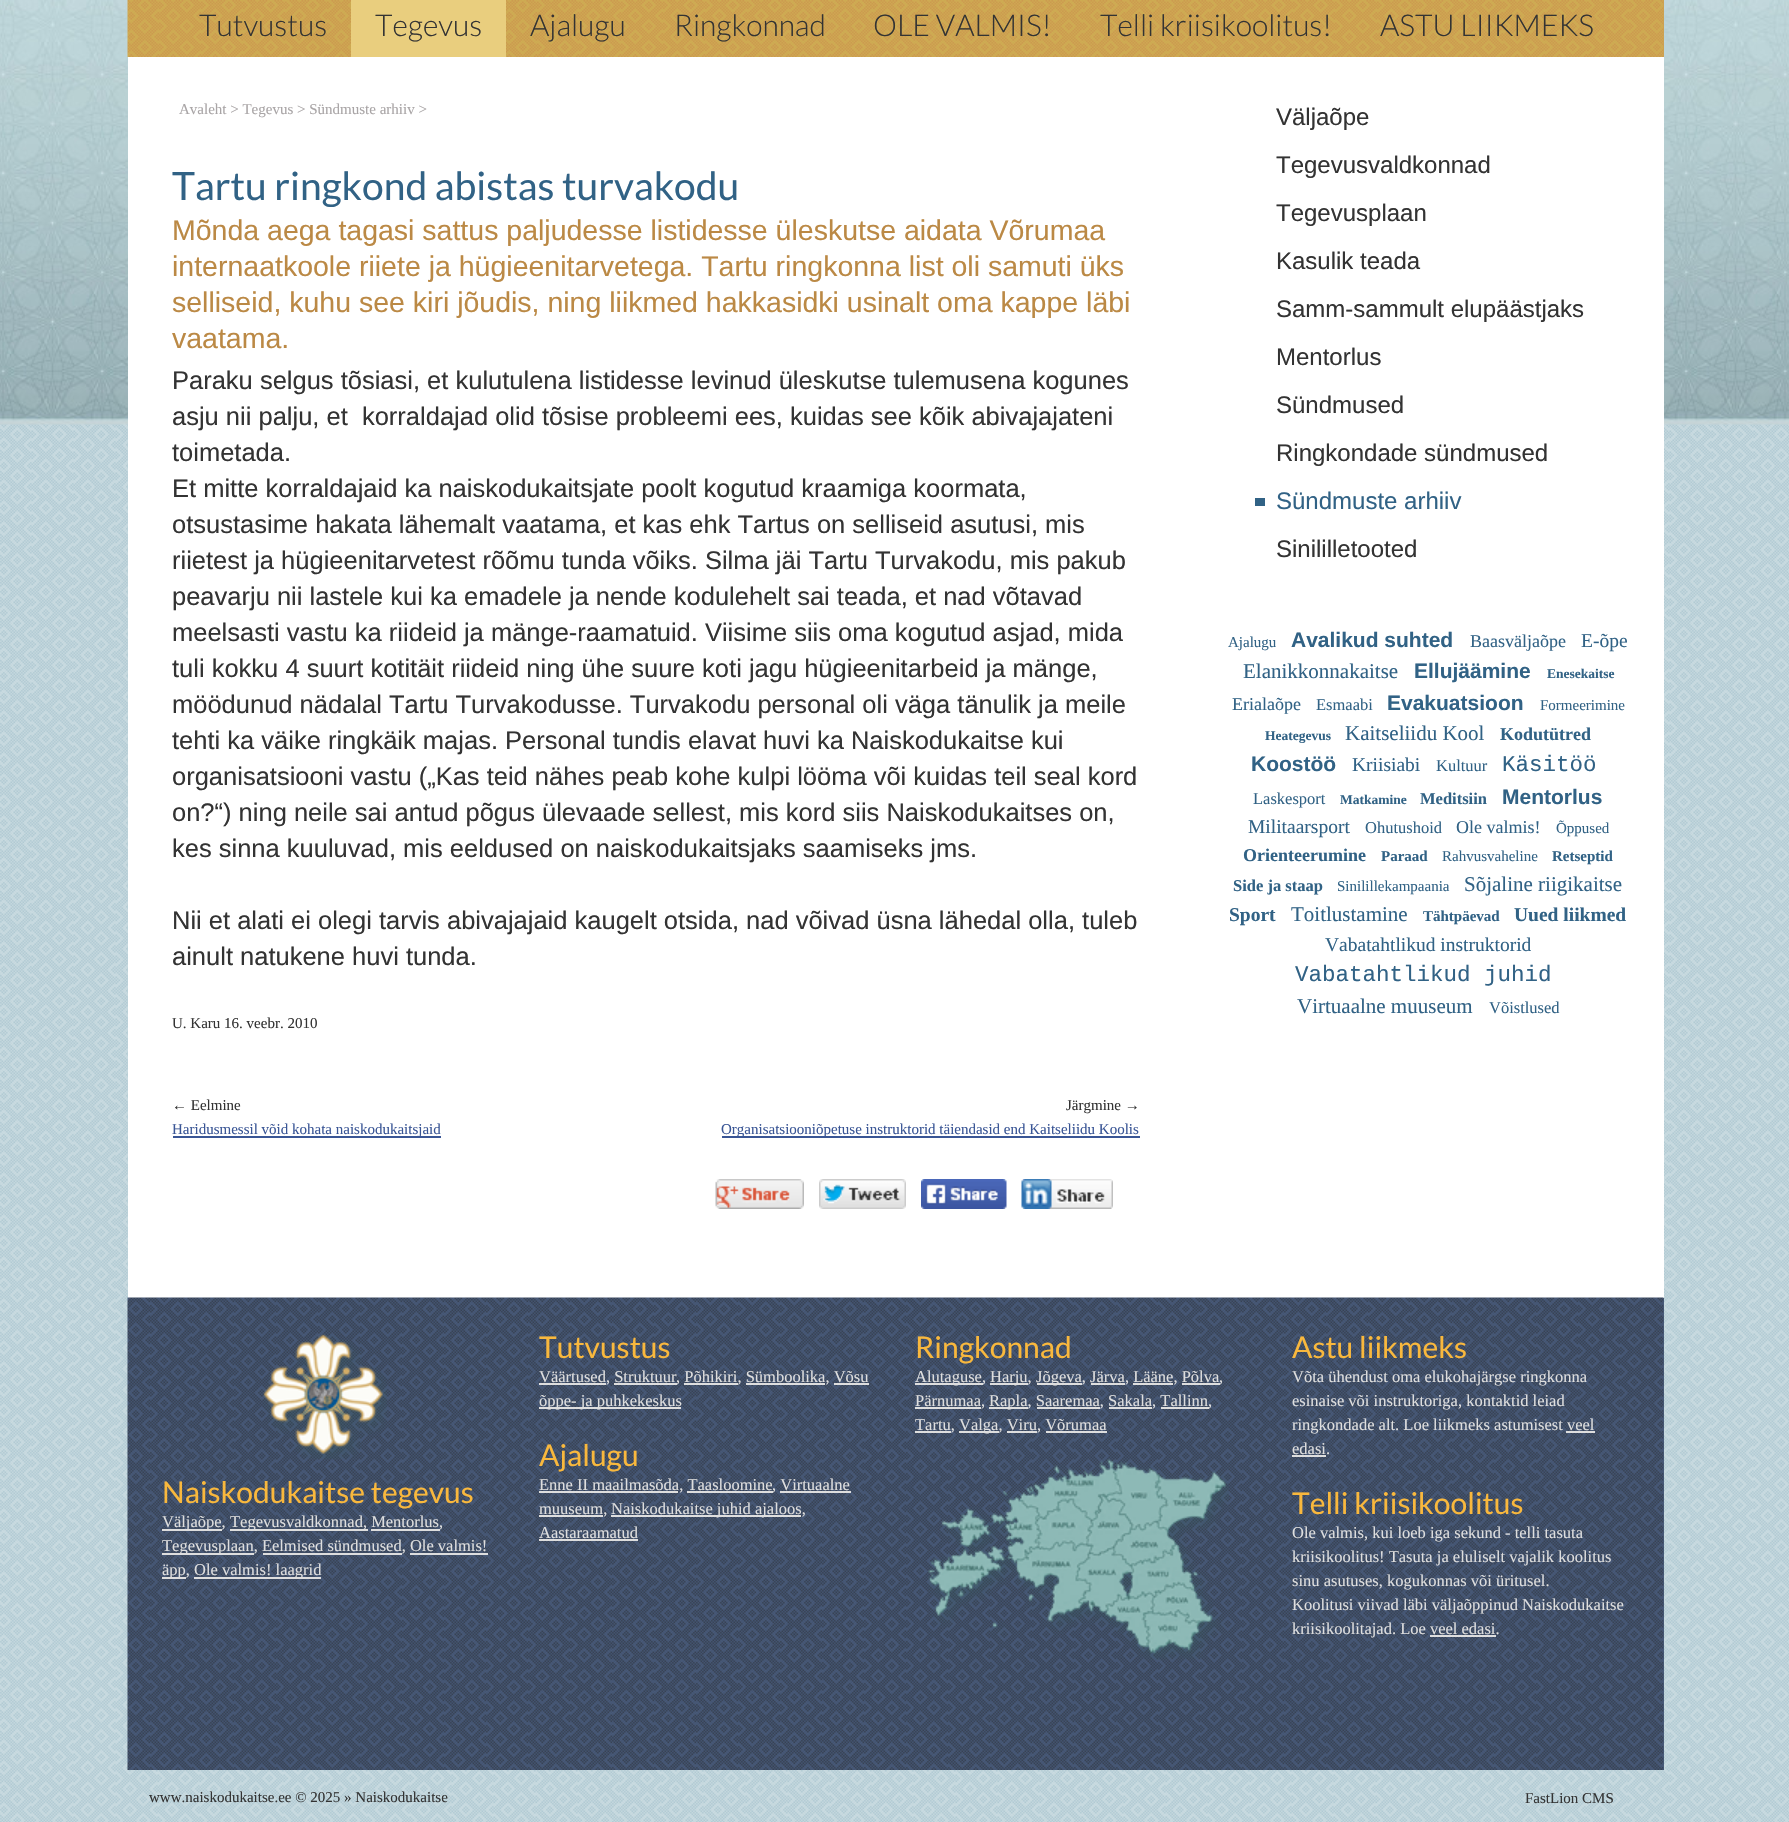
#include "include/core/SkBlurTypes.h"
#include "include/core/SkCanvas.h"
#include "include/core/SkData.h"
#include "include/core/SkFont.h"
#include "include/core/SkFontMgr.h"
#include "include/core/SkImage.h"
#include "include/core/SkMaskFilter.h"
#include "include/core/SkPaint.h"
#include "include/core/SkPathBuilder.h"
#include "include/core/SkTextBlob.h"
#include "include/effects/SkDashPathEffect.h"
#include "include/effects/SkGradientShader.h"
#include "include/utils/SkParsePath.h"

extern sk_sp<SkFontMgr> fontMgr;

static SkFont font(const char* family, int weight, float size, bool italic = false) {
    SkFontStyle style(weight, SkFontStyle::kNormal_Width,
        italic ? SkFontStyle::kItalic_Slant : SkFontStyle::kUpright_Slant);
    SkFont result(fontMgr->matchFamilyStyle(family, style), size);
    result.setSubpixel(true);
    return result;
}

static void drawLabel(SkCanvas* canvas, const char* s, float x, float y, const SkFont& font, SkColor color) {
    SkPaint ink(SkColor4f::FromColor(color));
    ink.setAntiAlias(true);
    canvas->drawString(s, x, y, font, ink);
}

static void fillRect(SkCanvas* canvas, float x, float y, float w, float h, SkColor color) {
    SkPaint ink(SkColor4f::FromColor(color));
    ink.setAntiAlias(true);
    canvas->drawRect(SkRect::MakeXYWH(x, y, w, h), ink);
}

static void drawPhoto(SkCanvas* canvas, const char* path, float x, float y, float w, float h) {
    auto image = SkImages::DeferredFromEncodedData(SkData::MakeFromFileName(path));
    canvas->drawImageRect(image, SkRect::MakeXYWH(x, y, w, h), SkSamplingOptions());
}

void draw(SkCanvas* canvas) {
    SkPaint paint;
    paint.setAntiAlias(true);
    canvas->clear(0xFFFFFFFF);
    drawPhoto(canvas, "assets/img1.png", 0, 424, 1789, 1398);
    drawPhoto(canvas, "assets/img2.png", 0, 0, 1789, 425);
    fillRect(canvas, 1663, 0, 1, 57, 0xFFCB9F51);
    drawPhoto(canvas, "assets/img3.png", 127, 0, 1537, 57);
    SkFont font1 = font("Lato", 300, 30);
    drawLabel(canvas, "Tutvustus", 199, 36, font1, 0xFF333333);
    fillRect(canvas, 351, 0, 155, 57, 0xFFE9CE7E);
    drawLabel(canvas, "Tegevus", 375, 36, font1, 0xFF333333);
    drawLabel(canvas, "Ajalugu", 530, 36, font1, 0xFF333333);
    drawLabel(canvas, "Ringkonnad", 674, 36, font1, 0xFF333333);
    drawLabel(canvas, "OLE VALMIS!", 873, 36, font1, 0xFF333333);
    drawLabel(canvas, "Telli kriisikoolitus!", 1100, 36, font1, 0xFF333333);
    drawLabel(canvas, "ASTU LIIKMEKS", 1380, 36, font1, 0xFF333333);
    fillRect(canvas, 128, 57, 1536, 1241, 0xFFFFFFFF);
    SkFont font2 = font("Liberation Serif", 400, 15);
    drawLabel(canvas, "Avaleht > Tegevus > Sündmuste arhiiv >", 179, 114, font2, 0xFFA9A5A6);
    SkFont font3 = font("Lato", 400, 39);
    drawLabel(canvas, "Tartu ringkond abistas turvakodu", 172, 200, font3, 0xFF316285);
    SkFont font4 = font("Liberation Sans", 400, 28.5f);
    drawLabel(canvas, "Mõnda aega tagasi sattus paljudesse listidesse üleskutse aidata Võrumaa", 172, 240, font4, 0xFFBB8945);
    drawLabel(canvas, "internaatkoole riiete ja hügieenitarvetega. Tartu ringkonna list oli samuti üks", 172, 276, font4, 0xFFBB8945);
    drawLabel(canvas, "selliseid, kuhu see kiri jõudis, ning liikmed hakkasidki usinalt oma kappe läbi", 172, 312, font4, 0xFFBB8945);
    drawLabel(canvas, "vaatama.", 172, 348, font4, 0xFFBB8945);
    SkFont font5 = font("Liberation Sans", 400, 25.5f);
    drawLabel(canvas, "Paraku selgus tõsiasi, et kulutulena listidesse levinud üleskutse tulemusena kogunes", 172, 389, font5, 0xFF333333);
    drawLabel(canvas, "asju nii palju, et  korraldajad olid tõsise probleemi ees, kuidas see kõik abivajajateni", 172, 425, font5, 0xFF333333);
    drawLabel(canvas, "toimetada.", 172, 461, font5, 0xFF333333);
    drawLabel(canvas, "Et mitte korraldajaid ka naiskodukaitsjate poolt kogutud kraamiga koormata,", 172, 497, font5, 0xFF333333);
    drawLabel(canvas, "otsustasime hakata lähemalt vaatama, et kas ehk Tartus on selliseid asutusi, mis", 172, 533, font5, 0xFF333333);
    drawLabel(canvas, "riietest ja hügieenitarvetest rõõmu tunda võiks. Silma jäi Tartu Turvakodu, mis pakub", 172, 569, font5, 0xFF333333);
    drawLabel(canvas, "peavarju nii lastele kui ka emadele ja nende kodulehelt sai teada, et nad võtavad", 172, 605, font5, 0xFF333333);
    drawLabel(canvas, "meelsasti vastu ka riideid ja mänge-raamatuid. Viisime siis oma kogutud asjad, mida", 172, 641, font5, 0xFF333333);
    drawLabel(canvas, "tuli kokku 4 suurt kotitäit riideid ning ühe suure koti jagu hügieenitarbeid ja mänge,", 172, 677, font5, 0xFF333333);
    drawLabel(canvas, "möödunud nädalal Tartu Turvakodusse. Turvakodu personal oli väga tänulik ja meile", 172, 713, font5, 0xFF333333);
    drawLabel(canvas, "tehti ka väike ringkäik majas. Personal tundis elavat huvi ka Naiskodukaitse kui", 172, 749, font5, 0xFF333333);
    drawLabel(canvas, "organisatsiooni vastu („Kas teid nähes peab kohe kulpi lööma või kuidas teil seal kord", 172, 785, font5, 0xFF333333);
    drawLabel(canvas, "on?“) ning neile sai antud põgus ülevaade sellest, mis kord siis Naiskodukaitses on,", 172, 821, font5, 0xFF333333);
    drawLabel(canvas, "kes sinna kuuluvad, mis eeldused on naiskodukaitsjaks saamiseks jms.", 172, 857, font5, 0xFF333333);
    drawLabel(canvas, "Nii et alati ei olegi tarvis abivajajaid kaugelt otsida, nad võivad üsna lähedal olla, tuleb", 172, 929, font5, 0xFF333333);
    drawLabel(canvas, "ainult natukene huvi tunda.", 172, 965, font5, 0xFF333333);
    drawLabel(canvas, "U. Karu 16. veebr. 2010", 172, 1028, font2, 0xFF333333);
    drawLabel(canvas, "← Eelmine", 172, 1110, font2, 0xFF333333);
    fillRect(canvas, 173, 1136, 268, 2, 0xFF395595);
    drawLabel(canvas, "Haridusmessil võid kohata naiskodukaitsjaid", 172, 1134, font2, 0xFF395595);
    drawLabel(canvas, "Järgmine →", 1066, 1110, font2, 0xFF333333);
    fillRect(canvas, 722, 1136, 418, 2, 0xFF395595);
    drawLabel(canvas, "Organisatsiooniõpetuse instruktorid täiendasid end Kaitseliidu Koolis", 721, 1134, font2, 0xFF395595);
    drawPhoto(canvas, "assets/img4.png", 715, 1179, 89, 30);
    drawPhoto(canvas, "assets/img5.png", 819, 1179, 87, 30);
    drawPhoto(canvas, "assets/img6.png", 921, 1179, 86, 30);
    drawPhoto(canvas, "assets/img7.png", 1021, 1179, 92, 30);
    SkFont font6 = font("Liberation Sans", 400, 24);
    drawLabel(canvas, "Väljaõpe", 1276, 125, font6, 0xFF333333);
    drawLabel(canvas, "Tegevusvaldkonnad", 1276, 173, font6, 0xFF333333);
    drawLabel(canvas, "Tegevusplaan", 1276, 221, font6, 0xFF333333);
    drawLabel(canvas, "Kasulik teada", 1276, 269, font6, 0xFF333333);
    drawLabel(canvas, "Samm-sammult elupäästjaks", 1276, 317, font6, 0xFF333333);
    drawLabel(canvas, "Mentorlus", 1276, 365, font6, 0xFF333333);
    drawLabel(canvas, "Sündmused", 1276, 413, font6, 0xFF333333);
    drawLabel(canvas, "Ringkondade sündmused", 1276, 461, font6, 0xFF333333);
    fillRect(canvas, 1255, 498, 10, 8, 0xFF316285);
    drawLabel(canvas, "Sündmuste arhiiv", 1276, 509, font6, 0xFF316285);
    drawLabel(canvas, "Sinililletooted", 1276, 557, font6, 0xFF333333);
    drawLabel(canvas, "Ajalugu", 1228, 647, font2, 0xFF316285);
    SkFont font7 = font("Liberation Sans", 700, 21);
    drawLabel(canvas, "Avalikud suhted", 1291, 647, font7, 0xFF316285);
    SkFont font8 = font("Liberation Serif", 400, 18);
    drawLabel(canvas, "Baasväljaõpe", 1470, 647, font8, 0xFF316285);
    SkFont font9 = font("Liberation Serif", 400, 19.5f);
    drawLabel(canvas, "E-õpe", 1581, 647, font9, 0xFF316285);
    SkFont font10 = font("Liberation Serif", 400, 21);
    drawLabel(canvas, "Elanikkonnakaitse", 1243, 678, font10, 0xFF316285);
    drawLabel(canvas, "Ellujäämine", 1414, 678, font7, 0xFF316285);
    SkFont font11 = font("Liberation Serif", 700, 13.5f);
    drawLabel(canvas, "Enesekaitse", 1547, 678, font11, 0xFF316285);
    drawLabel(canvas, "Erialaõpe", 1232, 710, font8, 0xFF316285);
    SkFont font12 = font("Liberation Serif", 400, 16.5f);
    drawLabel(canvas, "Esmaabi", 1316, 710, font12, 0xFF316285);
    drawLabel(canvas, "Evakuatsioon", 1387, 710, font7, 0xFF316285);
    drawLabel(canvas, "Formeerimine", 1540, 710, font2, 0xFF316285);
    drawLabel(canvas, "Heategevus", 1265, 740, font11, 0xFF316285);
    drawLabel(canvas, "Kaitseliidu Kool", 1345, 740, font10, 0xFF316285);
    SkFont font13 = font("Liberation Serif", 700, 18);
    drawLabel(canvas, "Kodutütred", 1500, 740, font13, 0xFF316285);
    drawLabel(canvas, "Koostöö", 1251, 771, font7, 0xFF316285);
    drawLabel(canvas, "Kriisiabi", 1352, 771, font9, 0xFF316285);
    drawLabel(canvas, "Kultuur", 1436, 771, font12, 0xFF316285);
    SkFont font14 = font("Liberation Mono", 400, 22.5f);
    drawLabel(canvas, "Käsitöö", 1502, 771, font14, 0xFF316285);
    drawLabel(canvas, "Laskesport", 1253, 804, font12, 0xFF316285);
    drawLabel(canvas, "Matkamine", 1340, 804, font11, 0xFF316285);
    SkFont font15 = font("Liberation Serif", 700, 16.5f);
    drawLabel(canvas, "Meditsiin", 1420, 804, font15, 0xFF316285);
    drawLabel(canvas, "Mentorlus", 1502, 804, font7, 0xFF316285);
    drawLabel(canvas, "Militaarsport", 1248, 833, font9, 0xFF316285);
    drawLabel(canvas, "Ohutushoid", 1365, 833, font12, 0xFF316285);
    drawLabel(canvas, "Ole valmis!", 1456, 833, font8, 0xFF316285);
    drawLabel(canvas, "Õppused", 1556, 833, font2, 0xFF316285);
    drawLabel(canvas, "Orienteerumine", 1243, 861, font13, 0xFF316285);
    SkFont font16 = font("Liberation Serif", 700, 15);
    drawLabel(canvas, "Paraad", 1381, 861, font16, 0xFF316285);
    drawLabel(canvas, "Rahvusvaheline", 1442, 861, font2, 0xFF316285);
    drawLabel(canvas, "Retseptid", 1552, 861, font16, 0xFF316285);
    drawLabel(canvas, "Side ja staap", 1233, 891, font15, 0xFF316285);
    drawLabel(canvas, "Sinilillekampaania", 1337, 891, font2, 0xFF316285);
    drawLabel(canvas, "Sõjaline riigikaitse", 1464, 891, font10, 0xFF316285);
    SkFont font17 = font("Liberation Serif", 700, 19.5f);
    drawLabel(canvas, "Sport", 1229, 921, font17, 0xFF316285);
    drawLabel(canvas, "Toitlustamine", 1291, 921, font10, 0xFF316285);
    drawLabel(canvas, "Tähtpäevad", 1423, 921, font16, 0xFF316285);
    drawLabel(canvas, "Uued liikmed", 1514, 921, font17, 0xFF316285);
    drawLabel(canvas, "Vabatahtlikud instruktorid", 1325, 951, font9, 0xFF316285);
    drawLabel(canvas, "Vabatahtlikud juhid", 1295, 981, font14, 0xFF316285);
    drawLabel(canvas, "Virtuaalne muuseum", 1297, 1013, font10, 0xFF316285);
    drawLabel(canvas, "Võistlused", 1489, 1013, font12, 0xFF316285);
    fillRect(canvas, 1663, 1298, 1, 472, 0xFF4A5D7E);
    drawPhoto(canvas, "assets/img8.png", 127, 1297, 1537, 473);
    drawPhoto(canvas, "assets/img9.png", 263, 1334, 124, 125);
    SkFont font18 = font("Lato", 400, 30);
    drawLabel(canvas, "Naiskodukaitse tegevus", 162, 1503, font18, 0xFFF9B83D);
    fillRect(canvas, 162, 1529, 60, 2, 0xFFDEDEDE);
    drawLabel(canvas, "Väljaõpe,", 162, 1527, font12, 0xFFDEDEDE);
    fillRect(canvas, 230, 1529, 138, 2, 0xFFDEDEDE);
    drawLabel(canvas, "Tegevusvaldkonnad, Mentorlus", 230, 1527, font12, 0xFFDEDEDE);
    fillRect(canvas, 371, 1529, 69, 2, 0xFFDEDEDE);
    drawLabel(canvas, ",", 439, 1527, font12, 0xFFDEDEDE);
    fillRect(canvas, 162, 1553, 92, 2, 0xFFDEDEDE);
    drawLabel(canvas, "Tegevusplaan, Eelmised sündmused, Ole valmis!", 162, 1551, font12, 0xFFDEDEDE);
    fillRect(canvas, 263, 1553, 139, 2, 0xFFDEDEDE);
    fillRect(canvas, 162, 1577, 24, 2, 0xFFDEDEDE);
    drawLabel(canvas, "äpp,", 162, 1575, font12, 0xFFDEDEDE);
    fillRect(canvas, 410, 1553, 78, 2, 0xFFDEDEDE);
    fillRect(canvas, 194, 1577, 127, 2, 0xFFDEDEDE);
    drawLabel(canvas, "Ole valmis! laagrid", 194, 1575, font12, 0xFFDEDEDE);
    drawLabel(canvas, "Tutvustus", 539, 1358, font18, 0xFFF9B83D);
    fillRect(canvas, 539, 1383, 67, 2, 0xFFDEDEDE);
    drawLabel(canvas, "Väärtused, Struktuur", 539, 1382, font12, 0xFFDEDEDE);
    fillRect(canvas, 614, 1383, 63, 2, 0xFFDEDEDE);
    drawLabel(canvas, ", Põhikiri, Sümboolika, Võsu", 676, 1382, font12, 0xFFDEDEDE);
    fillRect(canvas, 684, 1383, 54, 2, 0xFFDEDEDE);
    fillRect(canvas, 746, 1383, 79, 2, 0xFFDEDEDE);
    fillRect(canvas, 539, 1407, 142, 2, 0xFFDEDEDE);
    drawLabel(canvas, "õppe- ja puhkekeskus", 539, 1406, font12, 0xFFDEDEDE);
    fillRect(canvas, 834, 1383, 35, 2, 0xFFDEDEDE);
    drawLabel(canvas, "Ajalugu", 539, 1466, font18, 0xFFF9B83D);
    fillRect(canvas, 539, 1491, 139, 2, 0xFFDEDEDE);
    drawLabel(canvas, "Enne II maailmasõda, Taasloomine", 539, 1490, font12, 0xFFDEDEDE);
    fillRect(canvas, 687, 1491, 86, 2, 0xFFDEDEDE);
    drawLabel(canvas, ", Virtuaalne", 772, 1490, font12, 0xFFDEDEDE);
    fillRect(canvas, 539, 1515, 64, 2, 0xFFDEDEDE);
    drawLabel(canvas, "muuseum,", 539, 1514, font12, 0xFFDEDEDE);
    fillRect(canvas, 780, 1491, 71, 2, 0xFFDEDEDE);
    fillRect(canvas, 611, 1515, 190, 2, 0xFFDEDEDE);
    drawLabel(canvas, "Naiskodukaitse juhid ajaloos,", 611, 1514, font12, 0xFFDEDEDE);
    drawLabel(canvas, "Aastaraamatud", 539, 1538, font12, 0xFFDEDEDE);
    fillRect(canvas, 539, 1539, 99, 2, 0xFFDEDEDE);
    drawLabel(canvas, "Ringkonnad", 915, 1358, font18, 0xFFF9B83D);
    fillRect(canvas, 915, 1383, 68, 2, 0xFFDEDEDE);
    drawLabel(canvas, "Alutaguse,", 915, 1382, font12, 0xFFDEDEDE);
    fillRect(canvas, 990, 1383, 38, 2, 0xFFDEDEDE);
    drawLabel(canvas, "Harju,", 990, 1382, font12, 0xFFDEDEDE);
    fillRect(canvas, 1037, 1383, 45, 2, 0xFFDEDEDE);
    drawLabel(canvas, "Jõgeva, Järva, Lääne, Põlva", 1036, 1382, font12, 0xFFDEDEDE);
    fillRect(canvas, 1182, 1383, 38, 2, 0xFFDEDEDE);
    drawLabel(canvas, ",", 1219, 1382, font12, 0xFFDEDEDE);
    fillRect(canvas, 1091, 1383, 34, 2, 0xFFDEDEDE);
    fillRect(canvas, 1133, 1383, 40, 2, 0xFFDEDEDE);
    fillRect(canvas, 915, 1407, 66, 2, 0xFFDEDEDE);
    drawLabel(canvas, "Pärnumaa,", 915, 1406, font12, 0xFFDEDEDE);
    fillRect(canvas, 989, 1407, 39, 2, 0xFFDEDEDE);
    drawLabel(canvas, "Rapla, Saaremaa, Sakala, Tallinn", 989, 1406, font12, 0xFFDEDEDE);
    fillRect(canvas, 1161, 1407, 48, 2, 0xFFDEDEDE);
    drawLabel(canvas, ",", 1208, 1406, font12, 0xFFDEDEDE);
    fillRect(canvas, 1037, 1407, 63, 2, 0xFFDEDEDE);
    fillRect(canvas, 1109, 1407, 43, 2, 0xFFDEDEDE);
    fillRect(canvas, 915, 1431, 36, 2, 0xFFDEDEDE);
    drawLabel(canvas, "Tartu,", 915, 1430, font12, 0xFFDEDEDE);
    fillRect(canvas, 959, 1431, 40, 2, 0xFFDEDEDE);
    drawLabel(canvas, "Valga, Viru, Võrumaa", 959, 1430, font12, 0xFFDEDEDE);
    fillRect(canvas, 1007, 1431, 30, 2, 0xFFDEDEDE);
    fillRect(canvas, 1046, 1431, 61, 2, 0xFFDEDEDE);
    drawPhoto(canvas, "assets/img10.png", 928, 1459, 301, 201);
    drawLabel(canvas, "Astu liikmeks", 1292, 1358, font18, 0xFFF9B83D);
    drawLabel(canvas, "Võta ühendust oma elukohajärgse ringkonna", 1292, 1382, font12, 0xFFDEDEDE);
    drawLabel(canvas, "esinaise või instruktoriga, kontaktid leiad", 1292, 1406, font12, 0xFFDEDEDE);
    drawLabel(canvas, "ringkondade alt. Loe liikmeks astumisest veel", 1292, 1430, font12, 0xFFDEDEDE);
    drawLabel(canvas, "edasi.", 1292, 1454, font12, 0xFFDEDEDE);
    fillRect(canvas, 1566, 1431, 29, 2, 0xFFDEDEDE);
    fillRect(canvas, 1292, 1455, 34, 2, 0xFFDEDEDE);
    drawLabel(canvas, "Telli kriisikoolitus", 1292, 1514, font18, 0xFFF9B83D);
    drawLabel(canvas, "Ole valmis, kui loeb iga sekund - telli tasuta", 1292, 1538, font12, 0xFFDEDEDE);
    drawLabel(canvas, "kriisikoolitus! Tasuta ja eluliselt vajalik koolitus", 1292, 1562, font12, 0xFFDEDEDE);
    drawLabel(canvas, "sinu asutuses, kogukonnas või üritusel.", 1292, 1586, font12, 0xFFDEDEDE);
    drawLabel(canvas, "Koolitusi viivad läbi väljaõppinud Naiskodukaitse", 1292, 1610, font12, 0xFFDEDEDE);
    drawLabel(canvas, "kriisikoolitajad. Loe veel edasi.", 1292, 1634, font12, 0xFFDEDEDE);
    fillRect(canvas, 1430, 1635, 66, 2, 0xFFDEDEDE);
    drawLabel(canvas, "www.naiskodukaitse.ee © 2025 » Naiskodukaitse", 149, 1802, font2, 0xFF333333);
    drawLabel(canvas, "FastLion CMS", 1525, 1803, font2, 0xFF333333);
}
